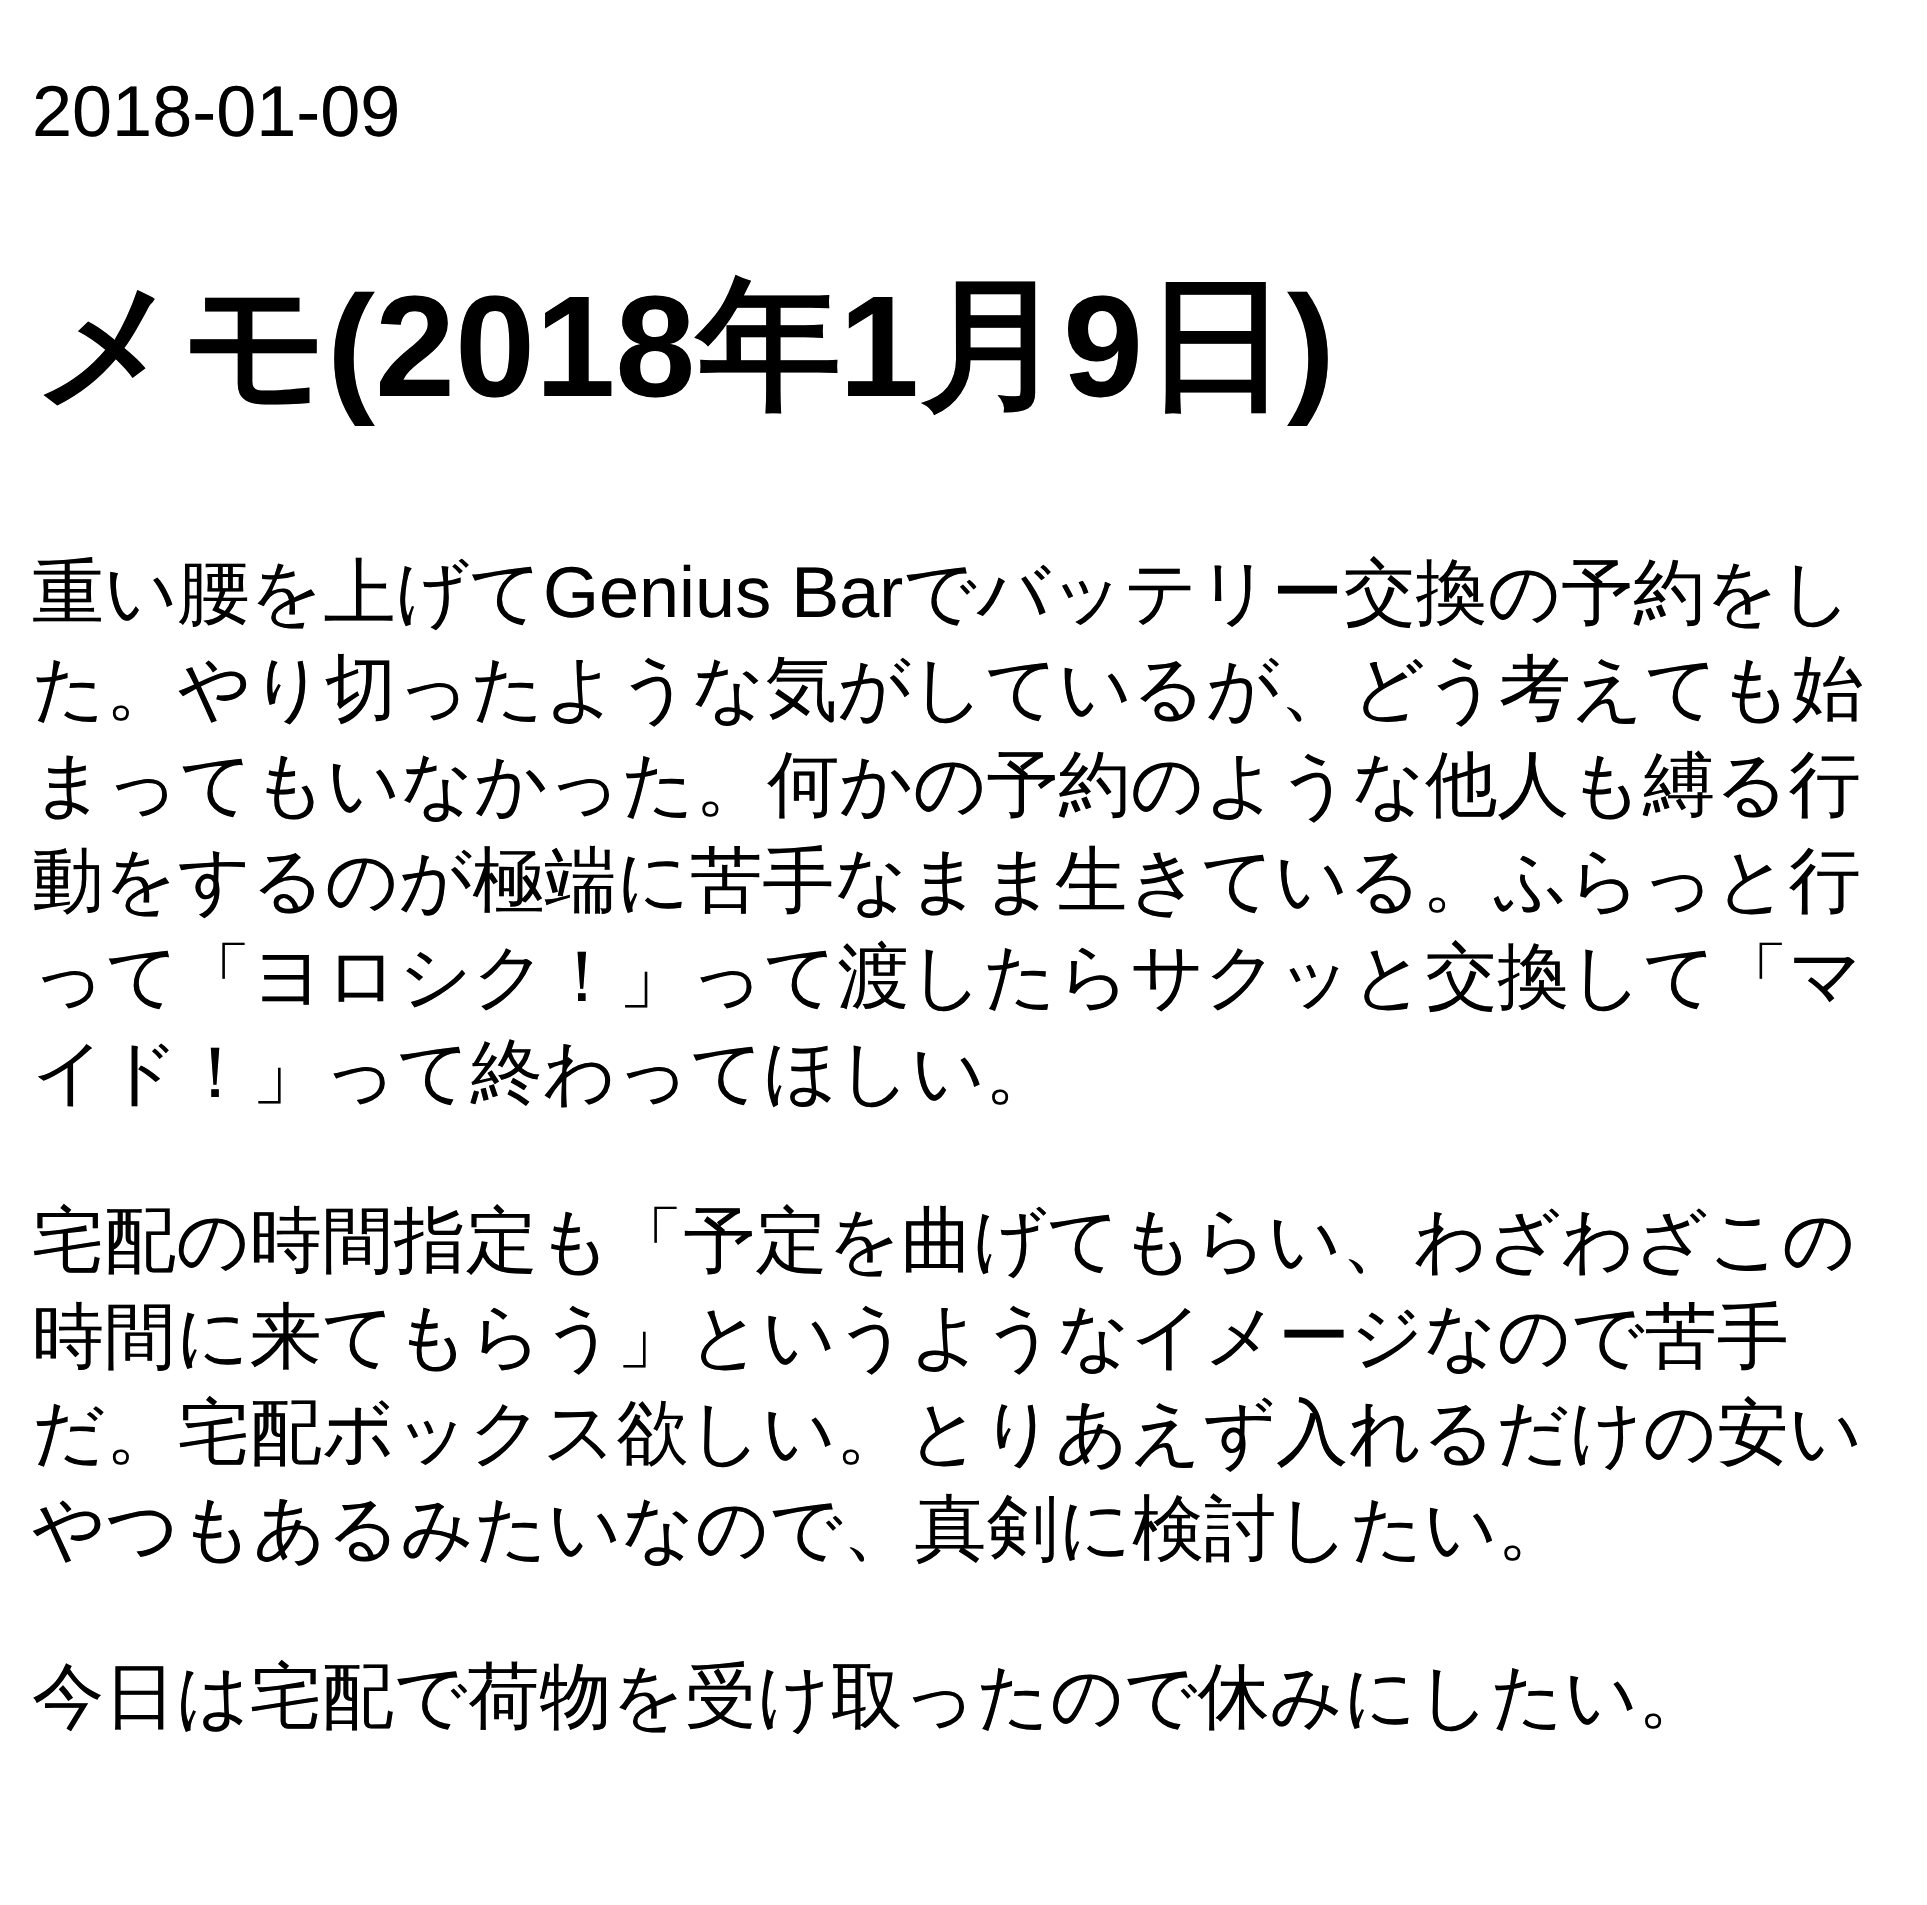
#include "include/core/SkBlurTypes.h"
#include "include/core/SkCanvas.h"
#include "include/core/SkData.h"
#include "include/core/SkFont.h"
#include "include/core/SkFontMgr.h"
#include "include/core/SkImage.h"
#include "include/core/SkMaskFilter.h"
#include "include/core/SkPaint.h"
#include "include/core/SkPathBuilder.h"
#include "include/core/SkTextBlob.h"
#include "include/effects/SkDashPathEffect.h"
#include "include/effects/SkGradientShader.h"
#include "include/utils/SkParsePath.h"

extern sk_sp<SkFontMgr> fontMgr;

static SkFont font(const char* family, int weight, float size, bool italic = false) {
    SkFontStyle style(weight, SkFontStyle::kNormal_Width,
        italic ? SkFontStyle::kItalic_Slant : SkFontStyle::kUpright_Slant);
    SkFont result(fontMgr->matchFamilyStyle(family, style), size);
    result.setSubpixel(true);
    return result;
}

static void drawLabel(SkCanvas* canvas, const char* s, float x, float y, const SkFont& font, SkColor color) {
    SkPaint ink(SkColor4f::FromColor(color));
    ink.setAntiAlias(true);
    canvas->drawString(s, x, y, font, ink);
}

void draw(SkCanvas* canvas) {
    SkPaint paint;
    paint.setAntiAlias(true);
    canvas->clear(0xFFFFFFFF);
    SkFont font1 = font("Liberation Sans", 400, 72);
    drawLabel(canvas, "2018-01-09", 32, 136, font1, 0xFF000000);
    SkFont font2 = font("WenQuanYi Zen Hei", 700, 144);
    drawLabel(canvas, "メモ", 32, 396, font2, 0xFF000000);
    SkFont font3 = font("Liberation Sans", 700, 144);
    drawLabel(canvas, "(2018", 327, 396, font3, 0xFF000000);
    drawLabel(canvas, "年", 695, 396, font2, 0xFF000000);
    drawLabel(canvas, "1", 839, 396, font3, 0xFF000000);
    drawLabel(canvas, "月", 919, 396, font2, 0xFF000000);
    drawLabel(canvas, "9", 1063, 396, font3, 0xFF000000);
    drawLabel(canvas, "日", 1143, 396, font2, 0xFF000000);
    drawLabel(canvas, ")", 1287, 396, font3, 0xFF000000);
    SkFont font4 = font("WenQuanYi Zen Hei", 500, 72);
    drawLabel(canvas, "重い腰を上げて", 32, 617, font4, 0xFF000000);
    drawLabel(canvas, "Genius Bar", 543, 617, font1, 0xFF000000);
    drawLabel(canvas, "でバッテリー交換の予約をし", 903, 617, font4, 0xFF000000);
    drawLabel(canvas, "た。やり切ったような気がしているが、どう考えても始", 32, 713, font4, 0xFF000000);
    drawLabel(canvas, "まってもいなかった。何かの予約のような他人も縛る行", 32, 809, font4, 0xFF000000);
    drawLabel(canvas, "動をするのが極端に苦手なまま生きている。ふらっと行", 32, 905, font4, 0xFF000000);
    drawLabel(canvas, "って「ヨロシク！」って渡したらサクッと交換して「マ", 32, 1001, font4, 0xFF000000);
    drawLabel(canvas, "イド！」って終わってほしい。", 32, 1097, font4, 0xFF000000);
    drawLabel(canvas, "宅配の時間指定も「予定を曲げてもらい、わざわざこの", 32, 1265, font4, 0xFF000000);
    drawLabel(canvas, "時間に来てもらう」というようなイメージなので苦手", 32, 1361, font4, 0xFF000000);
    drawLabel(canvas, "だ。宅配ボックス欲しい。とりあえず入れるだけの安い", 32, 1457, font4, 0xFF000000);
    drawLabel(canvas, "やつもあるみたいなので、真剣に検討したい。", 32, 1553, font4, 0xFF000000);
    drawLabel(canvas, "今日は宅配で荷物を受け取ったので休みにしたい。", 32, 1721, font4, 0xFF000000);
}
